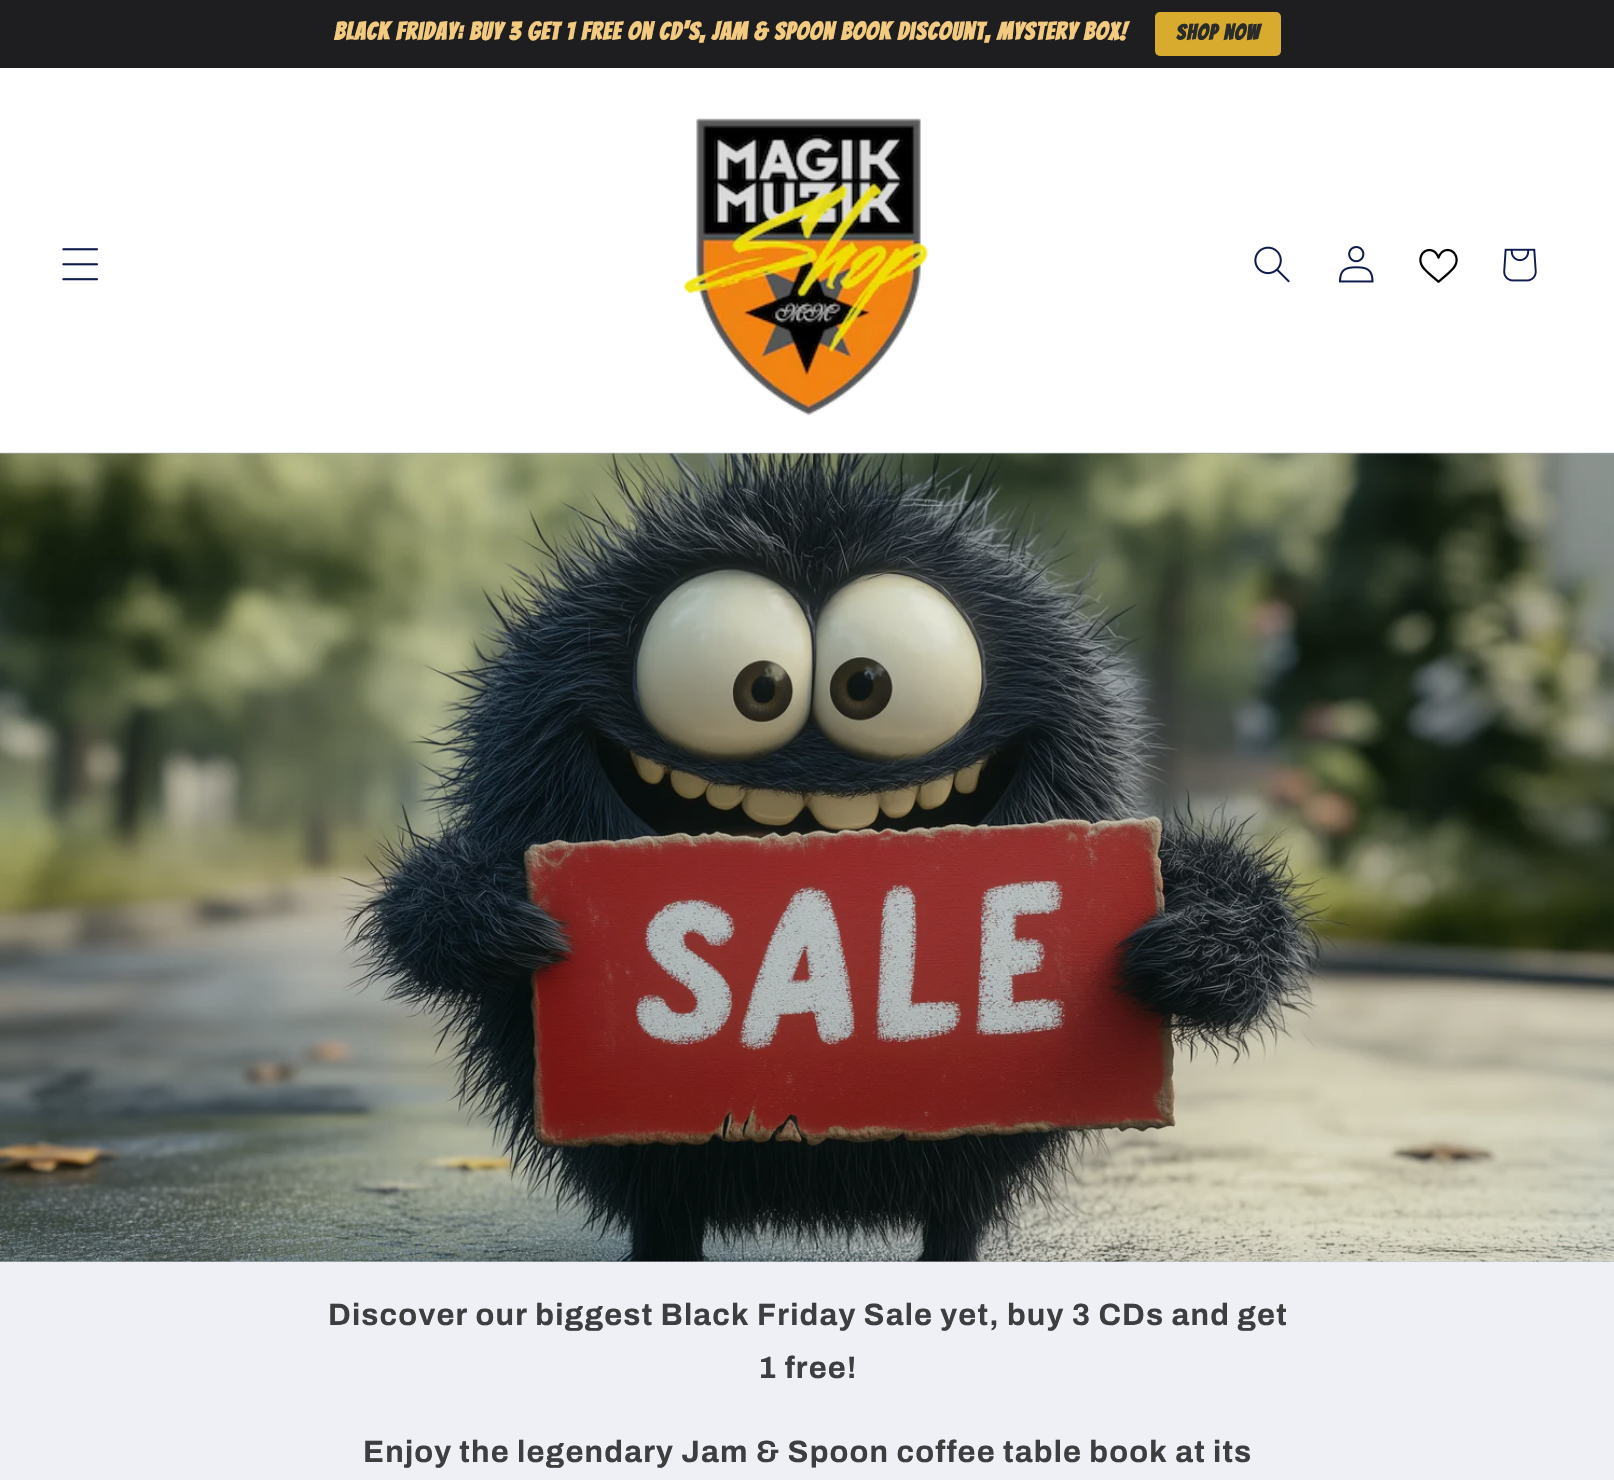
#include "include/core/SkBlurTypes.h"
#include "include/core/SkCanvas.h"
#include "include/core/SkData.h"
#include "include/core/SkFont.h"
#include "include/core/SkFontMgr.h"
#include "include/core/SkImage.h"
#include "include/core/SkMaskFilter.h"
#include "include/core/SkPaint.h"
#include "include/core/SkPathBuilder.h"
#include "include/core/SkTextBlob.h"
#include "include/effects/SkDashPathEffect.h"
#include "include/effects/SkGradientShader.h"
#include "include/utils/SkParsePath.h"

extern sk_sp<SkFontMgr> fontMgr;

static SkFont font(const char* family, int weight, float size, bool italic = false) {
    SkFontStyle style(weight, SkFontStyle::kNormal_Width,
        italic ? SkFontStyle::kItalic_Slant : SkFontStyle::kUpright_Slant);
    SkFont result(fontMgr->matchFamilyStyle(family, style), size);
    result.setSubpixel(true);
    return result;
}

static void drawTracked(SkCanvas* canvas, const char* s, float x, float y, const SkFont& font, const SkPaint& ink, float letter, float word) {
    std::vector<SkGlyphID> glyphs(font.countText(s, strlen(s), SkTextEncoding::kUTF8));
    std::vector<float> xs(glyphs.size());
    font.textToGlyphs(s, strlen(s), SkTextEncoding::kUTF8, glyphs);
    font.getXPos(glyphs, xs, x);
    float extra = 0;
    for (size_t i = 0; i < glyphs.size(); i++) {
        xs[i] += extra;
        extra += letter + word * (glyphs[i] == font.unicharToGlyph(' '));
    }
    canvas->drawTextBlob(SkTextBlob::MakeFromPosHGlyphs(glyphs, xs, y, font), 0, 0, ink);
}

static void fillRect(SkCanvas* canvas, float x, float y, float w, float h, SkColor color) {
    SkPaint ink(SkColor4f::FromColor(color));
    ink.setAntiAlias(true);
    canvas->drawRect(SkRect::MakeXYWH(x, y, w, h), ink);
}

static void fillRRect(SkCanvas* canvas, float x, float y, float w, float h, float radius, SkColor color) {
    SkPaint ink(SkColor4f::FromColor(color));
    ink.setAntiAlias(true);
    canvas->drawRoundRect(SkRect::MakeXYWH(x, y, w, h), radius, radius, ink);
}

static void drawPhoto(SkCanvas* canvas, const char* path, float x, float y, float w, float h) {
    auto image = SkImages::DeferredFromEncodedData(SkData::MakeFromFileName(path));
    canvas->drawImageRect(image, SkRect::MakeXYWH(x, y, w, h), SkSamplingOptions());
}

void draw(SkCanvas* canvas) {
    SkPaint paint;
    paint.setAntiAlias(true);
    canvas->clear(0xFFEFF0F5);
    fillRect(canvas, 0, 0, 1614, 68, 0xFF1E1E20);
    SkFont font1 = font("Bangers", 700, 24.5f);
    paint.setColor(0xFFF2CA80);
    drawTracked(canvas, "Black Friday: buy 3 get 1 free on CD's, Jam & Spoon Book discount, Mystery box!", 334, 40, font1, paint, 1.15f, 0);
    fillRRect(canvas, 1155, 12, 126, 44, 5, 0xFFD8AB2E);
    SkFont font2 = font("Bangers", 700, 21.5f);
    paint.setColor(0xFF2A2C2B);
    drawTracked(canvas, "Shop now", 1176, 40, font2, paint, 1.15f, 0);
    fillRect(canvas, 0, 68, 1614, 385, 0xFFFFFFFF);
    fillRect(canvas, 0, 453, 1614, 809, 0xFFC1C4C7);
    drawPhoto(canvas, "assets/img7.png", 0, 453, 1614, 809);
    fillRect(canvas, 0, 452, 1614, 2, 0x140E1B4D);
    drawPhoto(canvas, "assets/img1.png", 62, 248, 36, 33);
    drawPhoto(canvas, "assets/img2.png", 683, 118, 245, 298);
    drawPhoto(canvas, "assets/img3.png", 1254, 246, 36, 37);
    drawPhoto(canvas, "assets/img4.png", 1339, 246, 35, 37);
    drawPhoto(canvas, "assets/img5.png", 1419, 248, 39, 35);
    drawPhoto(canvas, "assets/img6.png", 1503, 248, 34, 34);
    SkFont font3 = font("Archivo", 700, 30.8f);
    paint.setColor(0xFF3D3E3F);
    drawTracked(canvas, "Discover our biggest Black Friday Sale yet, buy 3 CDs and get", 328, 1325, font3, paint, 1.15f, 0);
    drawTracked(canvas, "1 free!", 758, 1378, font3, paint, 1.15f, 0);
    drawTracked(canvas, "Enjoy the legendary Jam & Spoon coffee table book at its", 363, 1462, font3, paint, 1.15f, 0);
}
